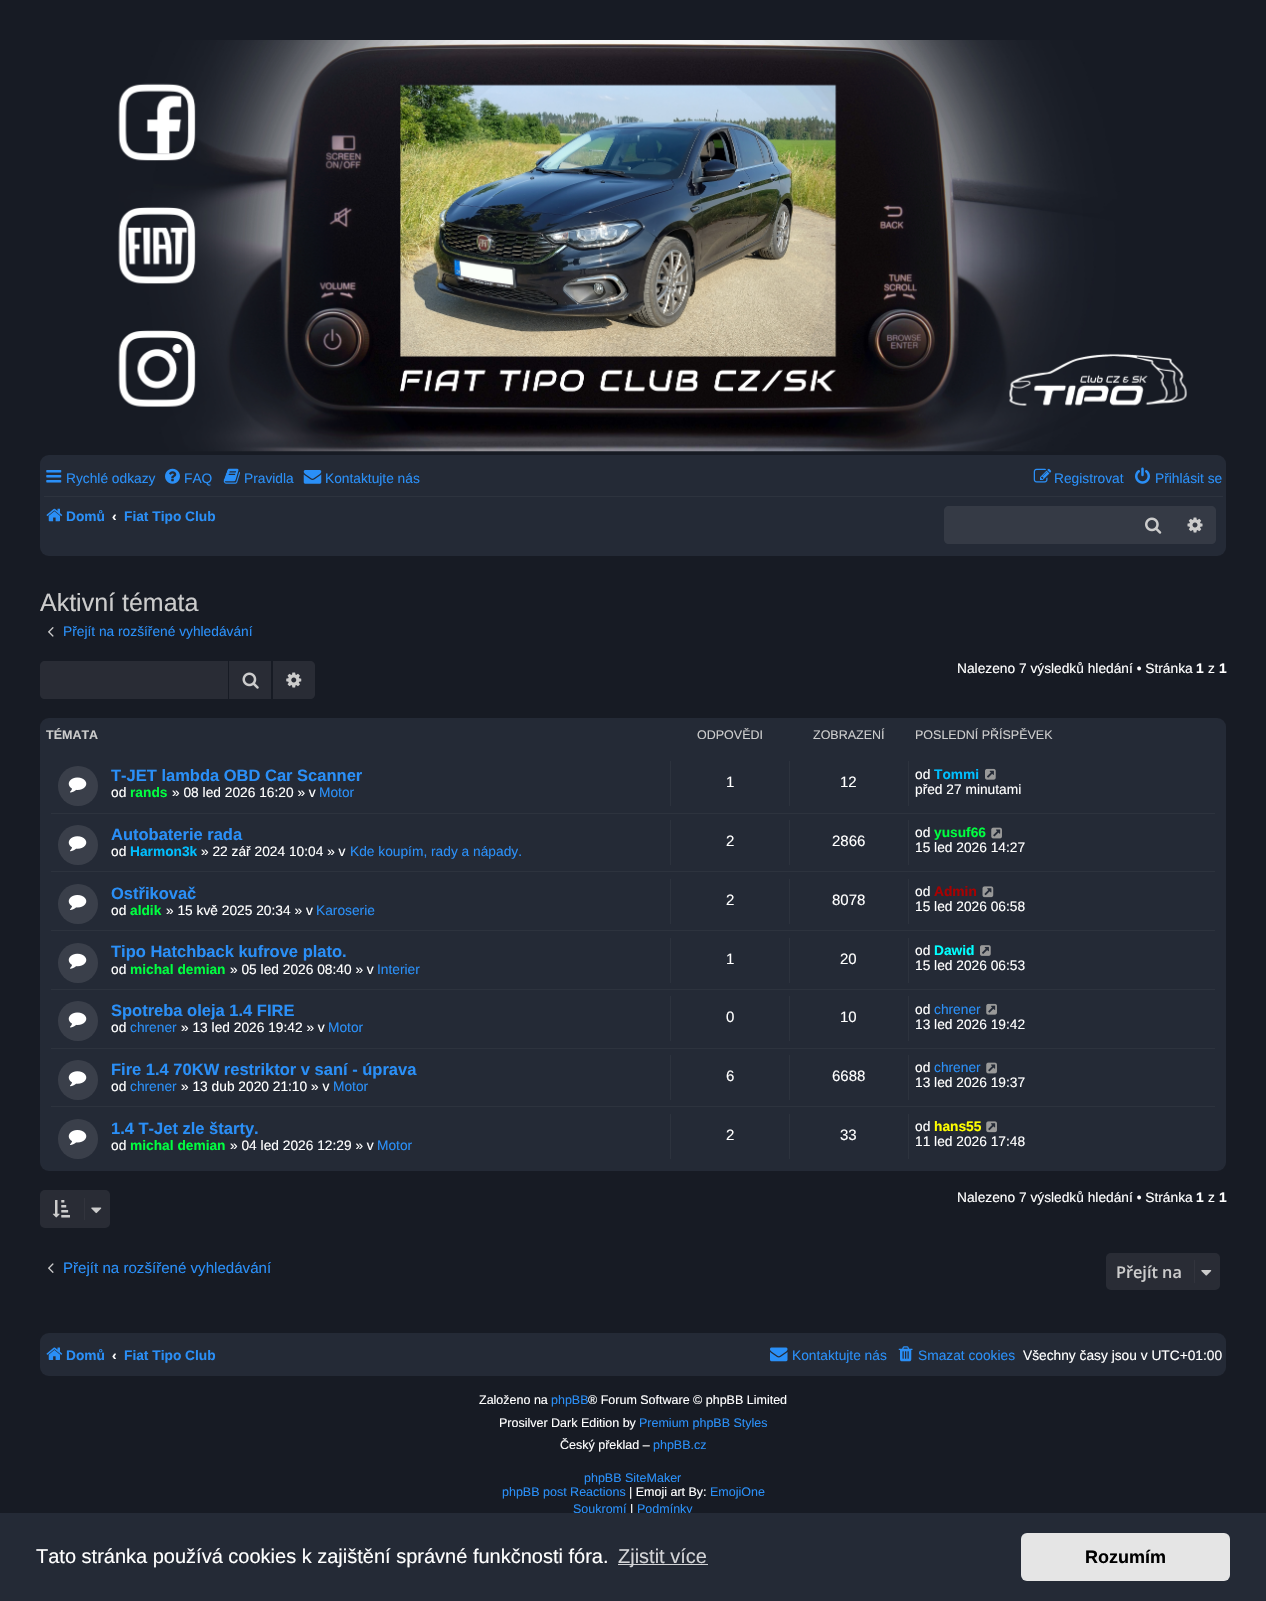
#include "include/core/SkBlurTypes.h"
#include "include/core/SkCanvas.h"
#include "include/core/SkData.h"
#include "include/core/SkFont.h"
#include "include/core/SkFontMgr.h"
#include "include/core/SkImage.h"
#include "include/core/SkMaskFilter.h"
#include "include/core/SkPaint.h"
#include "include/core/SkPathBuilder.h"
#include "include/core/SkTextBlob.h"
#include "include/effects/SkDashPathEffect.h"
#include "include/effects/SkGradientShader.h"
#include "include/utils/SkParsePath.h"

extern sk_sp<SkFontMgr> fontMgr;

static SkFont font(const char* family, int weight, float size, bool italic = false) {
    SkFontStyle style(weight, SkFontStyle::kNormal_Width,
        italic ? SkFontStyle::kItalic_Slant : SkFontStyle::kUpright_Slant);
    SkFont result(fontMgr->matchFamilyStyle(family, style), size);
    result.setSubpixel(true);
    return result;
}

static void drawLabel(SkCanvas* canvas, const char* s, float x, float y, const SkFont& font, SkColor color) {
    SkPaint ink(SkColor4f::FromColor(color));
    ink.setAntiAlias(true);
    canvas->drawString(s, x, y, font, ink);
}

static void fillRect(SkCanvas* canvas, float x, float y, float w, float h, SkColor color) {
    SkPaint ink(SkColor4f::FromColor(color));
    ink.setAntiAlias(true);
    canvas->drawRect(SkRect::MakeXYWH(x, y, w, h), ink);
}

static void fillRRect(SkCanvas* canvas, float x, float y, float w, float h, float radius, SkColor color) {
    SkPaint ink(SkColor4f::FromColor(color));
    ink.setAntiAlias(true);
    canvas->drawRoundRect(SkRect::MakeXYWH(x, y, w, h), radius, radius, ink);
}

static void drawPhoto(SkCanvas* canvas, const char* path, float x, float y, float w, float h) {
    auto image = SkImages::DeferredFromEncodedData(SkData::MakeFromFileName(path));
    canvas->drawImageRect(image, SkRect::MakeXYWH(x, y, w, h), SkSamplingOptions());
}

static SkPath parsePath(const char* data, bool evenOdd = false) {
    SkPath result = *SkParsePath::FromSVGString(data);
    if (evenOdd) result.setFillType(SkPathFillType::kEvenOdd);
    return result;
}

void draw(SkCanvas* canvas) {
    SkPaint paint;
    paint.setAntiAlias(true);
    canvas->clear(0xFF171B24);
    drawPhoto(canvas, "assets/img1.png", 40, 40, 1186, 412);
    fillRRect(canvas, 40, 455, 1186, 101, 9, 0xFF242A36);
    drawPhoto(canvas, "assets/img2.png", 46, 470, 16, 13);
    SkFont font1 = font("Liberation Sans", 400, 13.75f);
    drawLabel(canvas, "Rychlé odkazy", 66, 483, font1, 0xFF2A8FF7);
    drawPhoto(canvas, "assets/img3.png", 165, 468, 15, 16);
    drawLabel(canvas, "FAQ", 184, 483, font1, 0xFF2A8FF7);
    drawPhoto(canvas, "assets/img4.png", 223, 468, 17, 16);
    drawLabel(canvas, "Pravidla", 244, 483, font1, 0xFF2A8FF7);
    drawPhoto(canvas, "assets/img5.png", 303, 470, 19, 14);
    drawLabel(canvas, "Kontaktujte nás", 325, 483, font1, 0xFF2A8FF7);
    drawPhoto(canvas, "assets/img6.png", 1033, 468, 19, 15);
    drawLabel(canvas, "Registrovat", 1054, 483, font1, 0xFF2A8FF7);
    drawPhoto(canvas, "assets/img7.png", 1135, 467, 15, 17);
    drawLabel(canvas, "Přihlásit se", 1155, 483, font1, 0xFF2A8FF7);
    fillRect(canvas, 44, 496, 1179, 1, 0xFF2D333E);
    drawPhoto(canvas, "assets/img8.png", 46, 508, 17, 14);
    SkFont font2 = font("Liberation Sans", 700, 13.75f);
    drawLabel(canvas, "Domů", 66, 521, font2, 0xFF2A8FF7);
    drawLabel(canvas, "‹", 112, 521, font2, 0xFFFFFFFF);
    drawLabel(canvas, "Fiat Tipo Club", 124, 521, font2, 0xFF2A8FF7);
    paint.setColor(0xFF353A45);
    canvas->drawPath(parsePath("M949 506H1131V544H949C946 544 944 542 944 539V511C944 508 946 506 949 506Z"), paint);
    fillRect(canvas, 1131, 506, 43, 38, 0xFF353A45);
    drawPhoto(canvas, "assets/img9.png", 1145, 517, 17, 17);
    canvas->drawPath(parsePath("M1174 506H1211C1214 506 1216 508 1216 511V539C1216 542 1214 544 1211 544H1174Z"), paint);
    drawPhoto(canvas, "assets/img10.png", 1187, 517, 16, 16);
    SkFont font3 = font("Liberation Sans", 400, 25);
    drawLabel(canvas, "Aktivní témata", 40, 611, font3, 0xFFCCCCCC);
    drawPhoto(canvas, "assets/img11.png", 48, 627, 6, 10);
    drawLabel(canvas, "Přejít na rozšířené vyhledávání", 63, 636, font1, 0xFF2A8FF7);
    paint.setColor(0xFF292C35);
    canvas->drawPath(parsePath("M45 661H228V699H45C42 699 40 697 40 694V666C40 663 42 661 45 661Z"), paint);
    fillRect(canvas, 229, 661, 42, 38, 0xFF292C35);
    drawPhoto(canvas, "assets/img12.png", 242, 672, 17, 17);
    canvas->drawPath(parsePath("M273 661H310C313 661 315 663 315 666V694C315 697 313 699 310 699H273Z"), paint);
    drawPhoto(canvas, "assets/img13.png", 286, 672, 16, 16);
    drawLabel(canvas, "Nalezeno 7 výsledků hledání • Stránka", 957, 673, font1, 0xFFFFFFFF);
    drawLabel(canvas, "1", 1196, 673, font2, 0xFFFFFFFF);
    drawLabel(canvas, "z", 1208, 673, font1, 0xFFFFFFFF);
    drawLabel(canvas, "1", 1219, 673, font2, 0xFFFFFFFF);
    fillRRect(canvas, 40, 718, 1186, 453, 9, 0xFF242A36);
    SkFont font4 = font("Liberation Sans", 700, 12.5f);
    drawLabel(canvas, "TÉMATA", 46, 739, font4, 0xFFCCCCCC);
    SkFont font5 = font("Liberation Sans", 400, 12.5f);
    drawLabel(canvas, "ODPOVĚDI", 697, 739, font5, 0xFFCCCCCC);
    drawLabel(canvas, "ZOBRAZENÍ", 813, 739, font5, 0xFFCCCCCC);
    drawLabel(canvas, "POSLEDNÍ PŘÍSPĚVEK", 915, 739, font5, 0xFFCCCCCC);
    fillRect(canvas, 51, 813, 1164, 1, 0xFF2D333E);
    paint.setColor(0xFF3A3F4A);
    canvas->drawCircle(78, 786, 20, paint);
    drawPhoto(canvas, "assets/img14.png", 68, 777, 19, 16);
    SkFont font6 = font("Liberation Sans", 700, 16.5f);
    drawLabel(canvas, "T-JET lambda OBD Car Scanner", 111, 781, font6, 0xFF2A8FF7);
    drawLabel(canvas, "od", 111, 797, font1, 0xFFFFFFFF);
    drawLabel(canvas, "rands", 130, 797, font2, 0xFF00FF40);
    drawLabel(canvas, "» 08 led 2026 16:20 » v", 172, 797, font1, 0xFFFFFFFF);
    drawLabel(canvas, "Motor", 319, 797, font1, 0xFF2A8FF7);
    fillRect(canvas, 670, 761, 1, 45, 0xFF2D333E);
    SkFont font7 = font("Liberation Sans", 400, 15);
    drawLabel(canvas, "1", 726, 787, font7, 0xFFFFFFFF);
    fillRect(canvas, 789, 761, 1, 45, 0xFF2D333E);
    drawLabel(canvas, "12", 840, 787, font7, 0xFFFFFFFF);
    fillRect(canvas, 908, 761, 1, 45, 0xFF2D333E);
    drawLabel(canvas, "od", 915, 779, font1, 0xFFFFFFFF);
    drawLabel(canvas, "Tommi", 934, 779, font2, 0xFF00BFFF);
    drawPhoto(canvas, "assets/img15.png", 985, 768, 11, 12);
    drawLabel(canvas, "před 27 minutami", 915, 794, font1, 0xFFFFFFFF);
    fillRect(canvas, 51, 871, 1164, 1, 0xFF2D333E);
    canvas->drawCircle(78, 845, 20, paint);
    drawPhoto(canvas, "assets/img16.png", 68, 836, 19, 16);
    drawLabel(canvas, "Autobaterie rada", 111, 840, font6, 0xFF2A8FF7);
    drawLabel(canvas, "od", 111, 856, font1, 0xFFFFFFFF);
    drawLabel(canvas, "Harmon3k", 130, 856, font2, 0xFF00BFFF);
    drawLabel(canvas, "» 22 zář 2024 10:04 » v", 201, 856, font1, 0xFFFFFFFF);
    drawLabel(canvas, "Kde koupím, rady a nápady.", 350, 856, font1, 0xFF2A8FF7);
    fillRect(canvas, 670, 820, 1, 45, 0xFF2D333E);
    drawLabel(canvas, "2", 726, 846, font7, 0xFFFFFFFF);
    fillRect(canvas, 789, 820, 1, 45, 0xFF2D333E);
    drawLabel(canvas, "2866", 832, 846, font7, 0xFFFFFFFF);
    fillRect(canvas, 908, 820, 1, 45, 0xFF2D333E);
    drawLabel(canvas, "od", 915, 837, font1, 0xFFFFFFFF);
    drawLabel(canvas, "yusuf66", 934, 837, font2, 0xFF00FF40);
    drawPhoto(canvas, "assets/img17.png", 991, 827, 11, 12);
    drawLabel(canvas, "15 led 2026 14:27", 915, 852, font1, 0xFFFFFFFF);
    fillRect(canvas, 51, 930, 1164, 1, 0xFF2D333E);
    canvas->drawCircle(78, 904, 20, paint);
    drawPhoto(canvas, "assets/img18.png", 68, 895, 19, 15);
    drawLabel(canvas, "Ostřikovač", 111, 899, font6, 0xFF2A8FF7);
    drawLabel(canvas, "od", 111, 915, font1, 0xFFFFFFFF);
    drawLabel(canvas, "aldik", 130, 915, font2, 0xFF00FF40);
    drawLabel(canvas, "» 15 kvě 2025 20:34 » v", 166, 915, font1, 0xFFFFFFFF);
    drawLabel(canvas, "Karoserie", 316, 915, font1, 0xFF2A8FF7);
    fillRect(canvas, 670, 879, 1, 45, 0xFF2D333E);
    drawLabel(canvas, "2", 726, 905, font7, 0xFFFFFFFF);
    fillRect(canvas, 789, 879, 1, 45, 0xFF2D333E);
    drawLabel(canvas, "8078", 832, 905, font7, 0xFFFFFFFF);
    fillRect(canvas, 908, 879, 1, 45, 0xFF2D333E);
    drawLabel(canvas, "od", 915, 896, font1, 0xFFFFFFFF);
    drawLabel(canvas, "Admin", 934, 896, font2, 0xFFAA0000);
    drawPhoto(canvas, "assets/img19.png", 982, 886, 12, 12);
    drawLabel(canvas, "15 led 2026 06:58", 915, 911, font1, 0xFFFFFFFF);
    fillRect(canvas, 51, 989, 1164, 1, 0xFF2D333E);
    canvas->drawCircle(78, 963, 20, paint);
    drawPhoto(canvas, "assets/img20.png", 68, 953, 19, 16);
    drawLabel(canvas, "Tipo Hatchback kufrove plato.", 111, 957, font6, 0xFF2A8FF7);
    drawLabel(canvas, "od", 111, 974, font1, 0xFFFFFFFF);
    drawLabel(canvas, "michal demian", 130, 974, font2, 0xFF00FF40);
    drawLabel(canvas, "» 05 led 2026 08:40 » v", 230, 974, font1, 0xFFFFFFFF);
    drawLabel(canvas, "Interier", 377, 974, font1, 0xFF2A8FF7);
    fillRect(canvas, 670, 938, 1, 45, 0xFF2D333E);
    drawLabel(canvas, "1", 726, 964, font7, 0xFFFFFFFF);
    fillRect(canvas, 789, 938, 1, 45, 0xFF2D333E);
    drawLabel(canvas, "20", 840, 964, font7, 0xFFFFFFFF);
    fillRect(canvas, 908, 938, 1, 45, 0xFF2D333E);
    drawLabel(canvas, "od", 915, 955, font1, 0xFFFFFFFF);
    drawLabel(canvas, "Dawid", 934, 955, font2, 0xFF00FFFF);
    drawPhoto(canvas, "assets/img21.png", 980, 945, 11, 11);
    drawLabel(canvas, "15 led 2026 06:53", 915, 970, font1, 0xFFFFFFFF);
    fillRect(canvas, 51, 1048, 1164, 1, 0xFF2D333E);
    canvas->drawCircle(78, 1021, 20, paint);
    drawPhoto(canvas, "assets/img14.png", 68, 1012, 19, 16);
    drawLabel(canvas, "Spotreba oleja 1.4 FIRE", 111, 1016, font6, 0xFF2A8FF7);
    drawLabel(canvas, "od", 111, 1032, font1, 0xFFFFFFFF);
    drawLabel(canvas, "chrener", 130, 1032, font1, 0xFF2A8FF7);
    drawLabel(canvas, "» 13 led 2026 19:42 » v", 181, 1032, font1, 0xFFFFFFFF);
    drawLabel(canvas, "Motor", 328, 1032, font1, 0xFF2A8FF7);
    fillRect(canvas, 670, 996, 1, 45, 0xFF2D333E);
    drawLabel(canvas, "0", 726, 1022, font7, 0xFFFFFFFF);
    fillRect(canvas, 789, 996, 1, 45, 0xFF2D333E);
    drawLabel(canvas, "10", 840, 1022, font7, 0xFFFFFFFF);
    fillRect(canvas, 908, 996, 1, 45, 0xFF2D333E);
    drawLabel(canvas, "od", 915, 1014, font1, 0xFFFFFFFF);
    drawLabel(canvas, "chrener", 934, 1014, font1, 0xFF2A8FF7);
    drawPhoto(canvas, "assets/img22.png", 986, 1003, 11, 12);
    drawLabel(canvas, "13 led 2026 19:42", 915, 1029, font1, 0xFFFFFFFF);
    fillRect(canvas, 51, 1106, 1164, 1, 0xFF2D333E);
    canvas->drawCircle(78, 1080, 20, paint);
    drawPhoto(canvas, "assets/img16.png", 68, 1071, 19, 16);
    drawLabel(canvas, "Fire 1.4 70KW restriktor v saní - úprava", 111, 1075, font6, 0xFF2A8FF7);
    drawLabel(canvas, "od", 111, 1091, font1, 0xFFFFFFFF);
    drawLabel(canvas, "chrener", 130, 1091, font1, 0xFF2A8FF7);
    drawLabel(canvas, "» 13 dub 2020 21:10 » v", 181, 1091, font1, 0xFFFFFFFF);
    drawLabel(canvas, "Motor", 333, 1091, font1, 0xFF2A8FF7);
    fillRect(canvas, 670, 1055, 1, 45, 0xFF2D333E);
    drawLabel(canvas, "6", 726, 1081, font7, 0xFFFFFFFF);
    fillRect(canvas, 789, 1055, 1, 45, 0xFF2D333E);
    drawLabel(canvas, "6688", 832, 1081, font7, 0xFFFFFFFF);
    fillRect(canvas, 908, 1055, 1, 45, 0xFF2D333E);
    drawLabel(canvas, "od", 915, 1072, font1, 0xFFFFFFFF);
    drawLabel(canvas, "chrener", 934, 1072, font1, 0xFF2A8FF7);
    drawPhoto(canvas, "assets/img17.png", 986, 1062, 11, 12);
    drawLabel(canvas, "13 led 2026 19:37", 915, 1087, font1, 0xFFFFFFFF);
    canvas->drawCircle(78, 1139, 20, paint);
    drawPhoto(canvas, "assets/img18.png", 68, 1130, 19, 15);
    drawLabel(canvas, "1.4 T-Jet zle štarty.", 111, 1134, font6, 0xFF2A8FF7);
    drawLabel(canvas, "od", 111, 1150, font1, 0xFFFFFFFF);
    drawLabel(canvas, "michal demian", 130, 1150, font2, 0xFF00FF40);
    drawLabel(canvas, "» 04 led 2026 12:29 » v", 230, 1150, font1, 0xFFFFFFFF);
    drawLabel(canvas, "Motor", 377, 1150, font1, 0xFF2A8FF7);
    fillRect(canvas, 670, 1114, 1, 45, 0xFF2D333E);
    drawLabel(canvas, "2", 726, 1140, font7, 0xFFFFFFFF);
    fillRect(canvas, 789, 1114, 1, 45, 0xFF2D333E);
    drawLabel(canvas, "33", 840, 1140, font7, 0xFFFFFFFF);
    fillRect(canvas, 908, 1114, 1, 45, 0xFF2D333E);
    drawLabel(canvas, "od", 915, 1131, font1, 0xFFFFFFFF);
    drawLabel(canvas, "hans55", 934, 1131, font2, 0xFFFFFF00);
    drawPhoto(canvas, "assets/img23.png", 986, 1121, 11, 12);
    drawLabel(canvas, "11 led 2026 17:48", 915, 1146, font1, 0xFFFFFFFF);
    fillRRect(canvas, 40, 1190, 70, 38, 5, 0xFF292C35);
    drawPhoto(canvas, "assets/img24.png", 52, 1200, 18, 18);
    fillRect(canvas, 84, 1198, 1, 22, 0xFF32343D);
    drawPhoto(canvas, "assets/img25.png", 91, 1207, 11, 7);
    drawLabel(canvas, "Nalezeno 7 výsledků hledání • Stránka", 957, 1202, font1, 0xFFFFFFFF);
    drawLabel(canvas, "1", 1196, 1202, font2, 0xFFFFFFFF);
    drawLabel(canvas, "z", 1208, 1202, font1, 0xFFFFFFFF);
    drawLabel(canvas, "1", 1219, 1202, font2, 0xFFFFFFFF);
    drawPhoto(canvas, "assets/img26.png", 48, 1263, 6, 10);
    SkFont font8 = font("Liberation Sans", 400, 15.1f);
    drawLabel(canvas, "Přejít na rozšířené vyhledávání", 63, 1273, font8, 0xFF2A8FF7);
    fillRRect(canvas, 1106, 1253, 114, 37, 5, 0xFF292C35);
    SkFont font9 = font("Open Sans", 600, 16.25f);
    drawLabel(canvas, "Přejít na", 1116, 1278, font9, 0xFFCCCCCC);
    fillRect(canvas, 1194, 1260, 1, 23, 0xFF32343D);
    drawPhoto(canvas, "assets/img27.png", 1201, 1270, 11, 6);
    fillRRect(canvas, 40, 1333, 1186, 43, 9, 0xFF242A36);
    drawPhoto(canvas, "assets/img28.png", 46, 1347, 17, 13);
    drawLabel(canvas, "Domů", 66, 1360, font2, 0xFF2A8FF7);
    drawLabel(canvas, "‹", 112, 1360, font2, 0xFFFFFFFF);
    drawLabel(canvas, "Fiat Tipo Club", 124, 1360, font2, 0xFF2A8FF7);
    drawPhoto(canvas, "assets/img29.png", 770, 1347, 18, 15);
    drawLabel(canvas, "Kontaktujte nás", 792, 1360, font1, 0xFF2A8FF7);
    drawPhoto(canvas, "assets/img30.png", 898, 1346, 15, 16);
    drawLabel(canvas, "Smazat cookies", 918, 1360, font1, 0xFF2A8FF7);
    drawLabel(canvas, "Všechny časy jsou v UTC+01:00", 1023, 1360, font1, 0xFFFFFFFF);
    drawLabel(canvas, "Založeno na", 479, 1404, font5, 0xFFFFFFFF);
    drawLabel(canvas, "phpBB", 551, 1404, font5, 0xFF2A8FF7);
    drawLabel(canvas, "® Forum Software © phpBB Limited", 588, 1404, font5, 0xFFFFFFFF);
    drawLabel(canvas, "Prosilver Dark Edition by", 499, 1427, font5, 0xFFFFFFFF);
    drawLabel(canvas, "Premium phpBB Styles", 639, 1427, font5, 0xFF2A8FF7);
    drawLabel(canvas, "Český překlad –", 560, 1449, font5, 0xFFFFFFFF);
    drawLabel(canvas, "phpBB.cz", 653, 1449, font5, 0xFF2A8FF7);
    drawLabel(canvas, "phpBB SiteMaker", 584, 1482, font5, 0xFF2A8FF7);
    drawLabel(canvas, "phpBB post Reactions", 502, 1496, font5, 0xFF2A8FF7);
    drawLabel(canvas, "| Emoji art By:", 629, 1496, font5, 0xFFFFFFFF);
    drawLabel(canvas, "EmojiOne", 710, 1496, font5, 0xFF2A8FF7);
    drawLabel(canvas, "Soukromí", 573, 1513, font5, 0xFF2A8FF7);
    drawLabel(canvas, "|", 630, 1513, font5, 0xFFFFFFFF);
    drawLabel(canvas, "Podmínky", 637, 1513, font5, 0xFF2A8FF7);
    fillRect(canvas, 0, 1513, 1266, 88, 0xFF242A36);
    SkFont font10 = font("Liberation Sans", 400, 20);
    drawLabel(canvas, "Tato stránka používá cookies k zajištění správné funkčnosti fóra.", 36, 1563, font10, 0xFFFFFFFF);
    fillRect(canvas, 618, 1564, 90, 1, 0xFFD3D4D7);
    drawLabel(canvas, "Zjistit více", 618, 1563, font10, 0xFFD3D4D7);
    fillRRect(canvas, 1021, 1533, 209, 48, 6, 0xFFE5E5E5);
    SkFont font11 = font("Liberation Sans", 700, 18);
    drawLabel(canvas, "Rozumím", 1085, 1563, font11, 0xFF000000);
}
